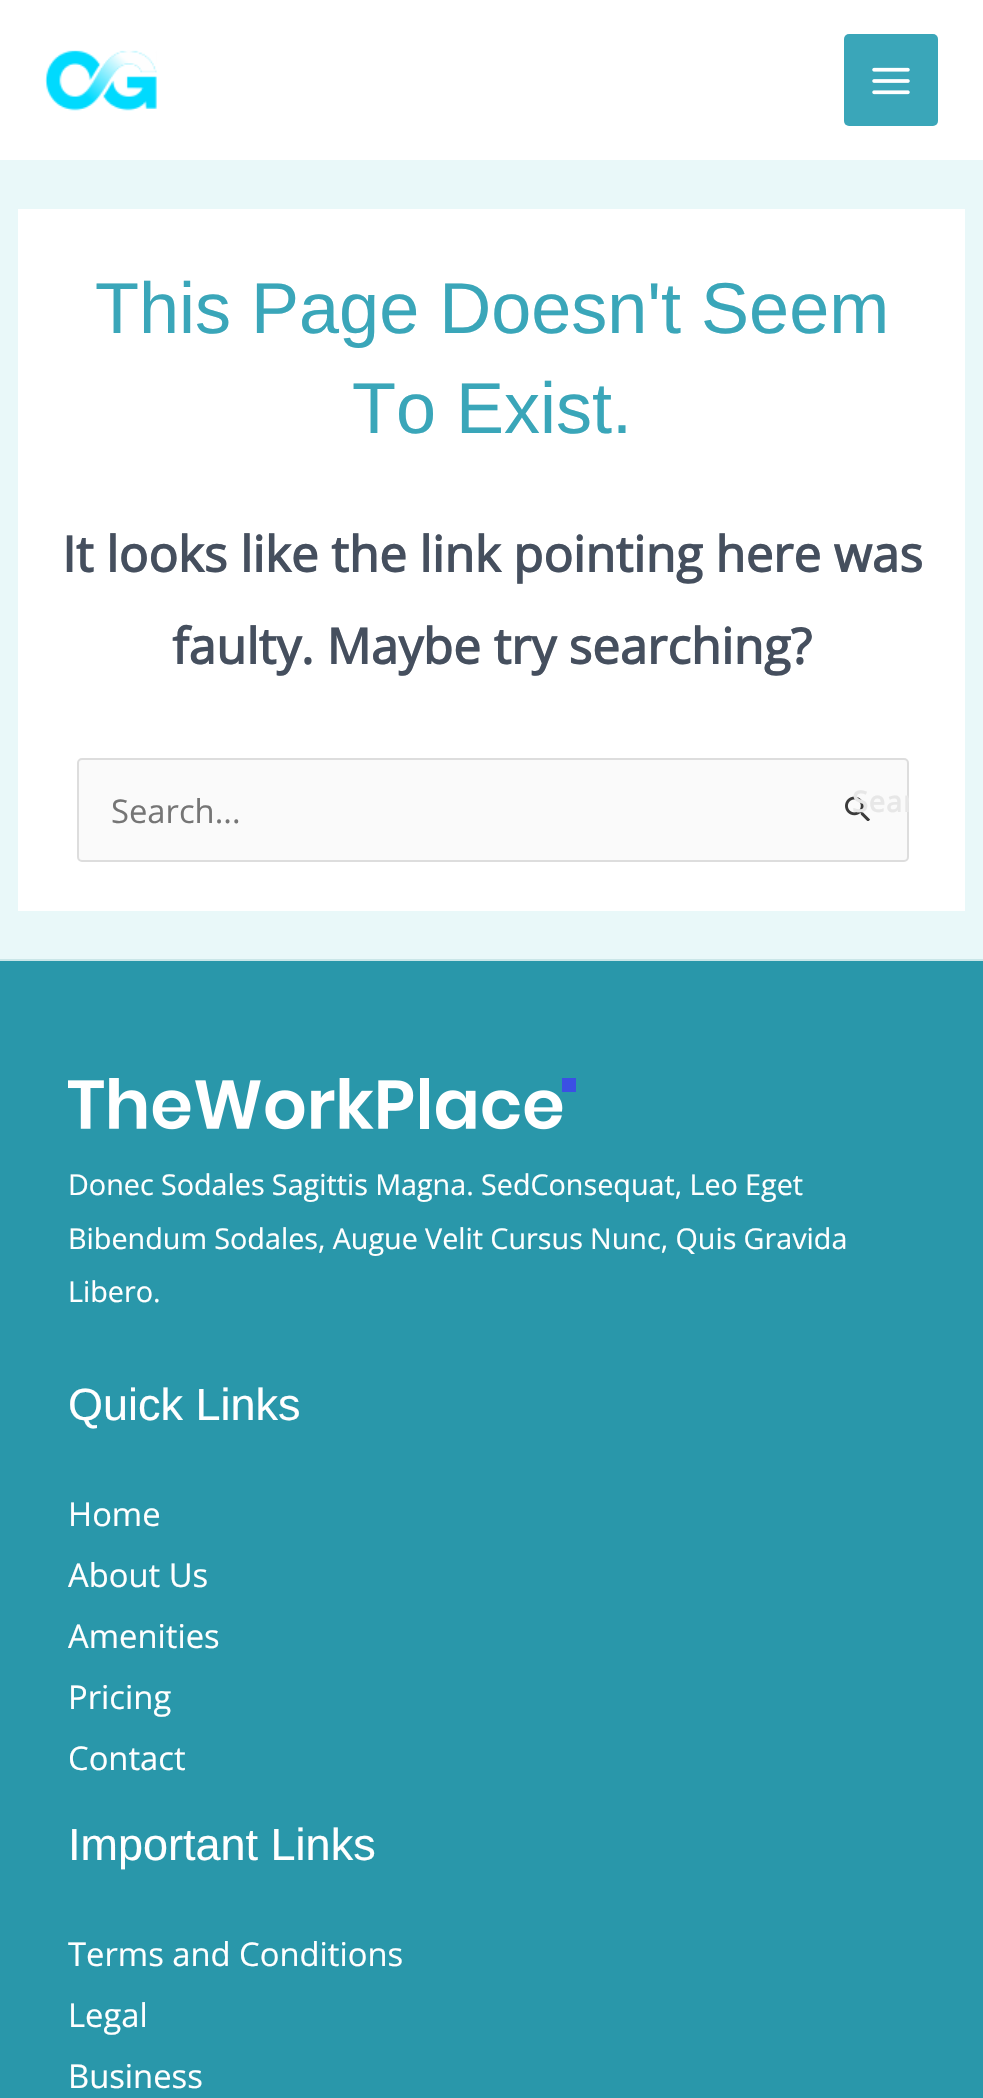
#include "include/core/SkBlurTypes.h"
#include "include/core/SkCanvas.h"
#include "include/core/SkData.h"
#include "include/core/SkFont.h"
#include "include/core/SkFontMgr.h"
#include "include/core/SkImage.h"
#include "include/core/SkMaskFilter.h"
#include "include/core/SkPaint.h"
#include "include/core/SkPathBuilder.h"
#include "include/core/SkTextBlob.h"
#include "include/effects/SkDashPathEffect.h"
#include "include/effects/SkGradientShader.h"
#include "include/utils/SkParsePath.h"

extern sk_sp<SkFontMgr> fontMgr;

static SkFont font(const char* family, int weight, float size, bool italic = false) {
    SkFontStyle style(weight, SkFontStyle::kNormal_Width,
        italic ? SkFontStyle::kItalic_Slant : SkFontStyle::kUpright_Slant);
    SkFont result(fontMgr->matchFamilyStyle(family, style), size);
    result.setSubpixel(true);
    return result;
}

static void drawLabel(SkCanvas* canvas, const char* s, float x, float y, const SkFont& font, SkColor color) {
    SkPaint ink(SkColor4f::FromColor(color));
    ink.setAntiAlias(true);
    canvas->drawString(s, x, y, font, ink);
}

static void drawTracked(SkCanvas* canvas, const char* s, float x, float y, const SkFont& font, const SkPaint& ink, float letter, float word) {
    std::vector<SkGlyphID> glyphs(font.countText(s, strlen(s), SkTextEncoding::kUTF8));
    std::vector<float> xs(glyphs.size());
    font.textToGlyphs(s, strlen(s), SkTextEncoding::kUTF8, glyphs);
    font.getXPos(glyphs, xs, x);
    float extra = 0;
    for (size_t i = 0; i < glyphs.size(); i++) {
        xs[i] += extra;
        extra += letter + word * (glyphs[i] == font.unicharToGlyph(' '));
    }
    canvas->drawTextBlob(SkTextBlob::MakeFromPosHGlyphs(glyphs, xs, y, font), 0, 0, ink);
}

static void fillRect(SkCanvas* canvas, float x, float y, float w, float h, SkColor color) {
    SkPaint ink(SkColor4f::FromColor(color));
    ink.setAntiAlias(true);
    canvas->drawRect(SkRect::MakeXYWH(x, y, w, h), ink);
}

static void fillRRect(SkCanvas* canvas, float x, float y, float w, float h, float radius, SkColor color) {
    SkPaint ink(SkColor4f::FromColor(color));
    ink.setAntiAlias(true);
    canvas->drawRoundRect(SkRect::MakeXYWH(x, y, w, h), radius, radius, ink);
}

static void drawPhoto(SkCanvas* canvas, const char* path, float x, float y, float w, float h) {
    auto image = SkImages::DeferredFromEncodedData(SkData::MakeFromFileName(path));
    canvas->drawImageRect(image, SkRect::MakeXYWH(x, y, w, h), SkSamplingOptions());
}

static SkPath parsePath(const char* data, bool evenOdd = false) {
    SkPath result = *SkParsePath::FromSVGString(data);
    if (evenOdd) result.setFillType(SkPathFillType::kEvenOdd);
    return result;
}

void draw(SkCanvas* canvas) {
    SkPaint paint;
    paint.setAntiAlias(true);
    canvas->clear(0xFFE9F8F9);
    fillRect(canvas, 0, 0, 983, 160, 0xFFFFFFFF);
    drawPhoto(canvas, "assets/img1.png", 45, 50, 112, 61);
    fillRRect(canvas, 844, 34, 94, 92, 5, 0xFF3AA6B9);
    drawPhoto(canvas, "assets/img2.png", 872, 67, 38, 28);
    fillRect(canvas, 18, 209, 947, 702, 0xFFFFFFFF);
    SkFont font1 = font("Liberation Sans", 400, 72);
    drawLabel(canvas, "This Page Doesn't Seem", 95, 333, font1, 0xFF3AA6B9);
    drawLabel(canvas, "To Exist.", 352, 433, font1, 0xFF3AA6B9);
    SkFont font2 = font("Open Sans", 700, 49.25f);
    drawLabel(canvas, "It looks like the link pointing here was", 62, 572, font2, 0xFF454F5E);
    drawLabel(canvas, "faulty. Maybe try searching?", 172, 664, font2, 0xFF454F5E);
    paint.setColor(0xFFFAFAFA);
    canvas->drawRoundRect(SkRect::MakeXYWH(78, 759, 830, 102), 4, 4, paint);
    paint.setStroke(true);
    paint.setStrokeWidth(2);
    paint.setColor(0xFFDDDDDD);
    canvas->drawRoundRect(SkRect::MakeXYWH(78, 759, 830, 102), 4, 4, paint);
    SkFont font3 = font("Open Sans", 400, 32.75f);
    drawLabel(canvas, "Search...", 111, 823, font3, 0xFF757575);
    drawPhoto(canvas, "assets/img3.png", 845, 796, 25, 25);
    canvas->save();
    canvas->clipPath(parsePath("M813 758H904C907 758 909 760 909 763V839C909 842 907 844 904 844H813C810 844 808 842 808 839V763C808 760 810 758 813 758Z"), true);
    SkFont font4 = font("Open Sans", 700, 28.75f);
    paint.setStroke(false);
    paint.setColor(0xFFE7E7E7);
    drawTracked(canvas, "Sear", 852, 812, font4, paint, 1, 0);
    canvas->restore();
    fillRect(canvas, 0, 961, 983, 1137, 0xFF2997AA);
    fillRect(canvas, 0, 959, 983, 2, 0xFFCAE6E8);
    drawPhoto(canvas, "assets/img4.png", 68, 1078, 508, 52);
    SkFont font5 = font("Open Sans", 400, 28.75f);
    paint.setColor(0xFFFFFFFF);
    drawTracked(canvas, "Donec Sodales Sagittis Magna. SedConsequat, Leo Eget", 68, 1195, font5, paint, 0, -0.25f);
    drawTracked(canvas, "Bibendum Sodales, Augue Velit Cursus Nunc, Quis Gravida", 68, 1249, font5, paint, 0, -0.25f);
    drawLabel(canvas, "Libero.", 68, 1302, font5, 0xFFFFFFFF);
    SkFont font6 = font("Liberation Sans", 400, 45);
    drawLabel(canvas, "Quick Links", 68, 1420, font6, 0xFFFFFFFF);
    drawLabel(canvas, "Home", 68, 1526, font3, 0xFFFFFFFF);
    drawLabel(canvas, "About Us", 68, 1587, font3, 0xFFFFFFFF);
    drawLabel(canvas, "Amenities", 68, 1648, font3, 0xFFFFFFFF);
    drawLabel(canvas, "Pricing", 68, 1709, font3, 0xFFFFFFFF);
    drawLabel(canvas, "Contact", 68, 1770, font3, 0xFFFFFFFF);
    drawLabel(canvas, "Important Links", 68, 1860, font6, 0xFFFFFFFF);
    drawLabel(canvas, "Terms and Conditions", 68, 1966, font3, 0xFFFFFFFF);
    drawLabel(canvas, "Legal", 68, 2027, font3, 0xFFFFFFFF);
    drawLabel(canvas, "Business", 68, 2088, font3, 0xFFFFFFFF);
}
